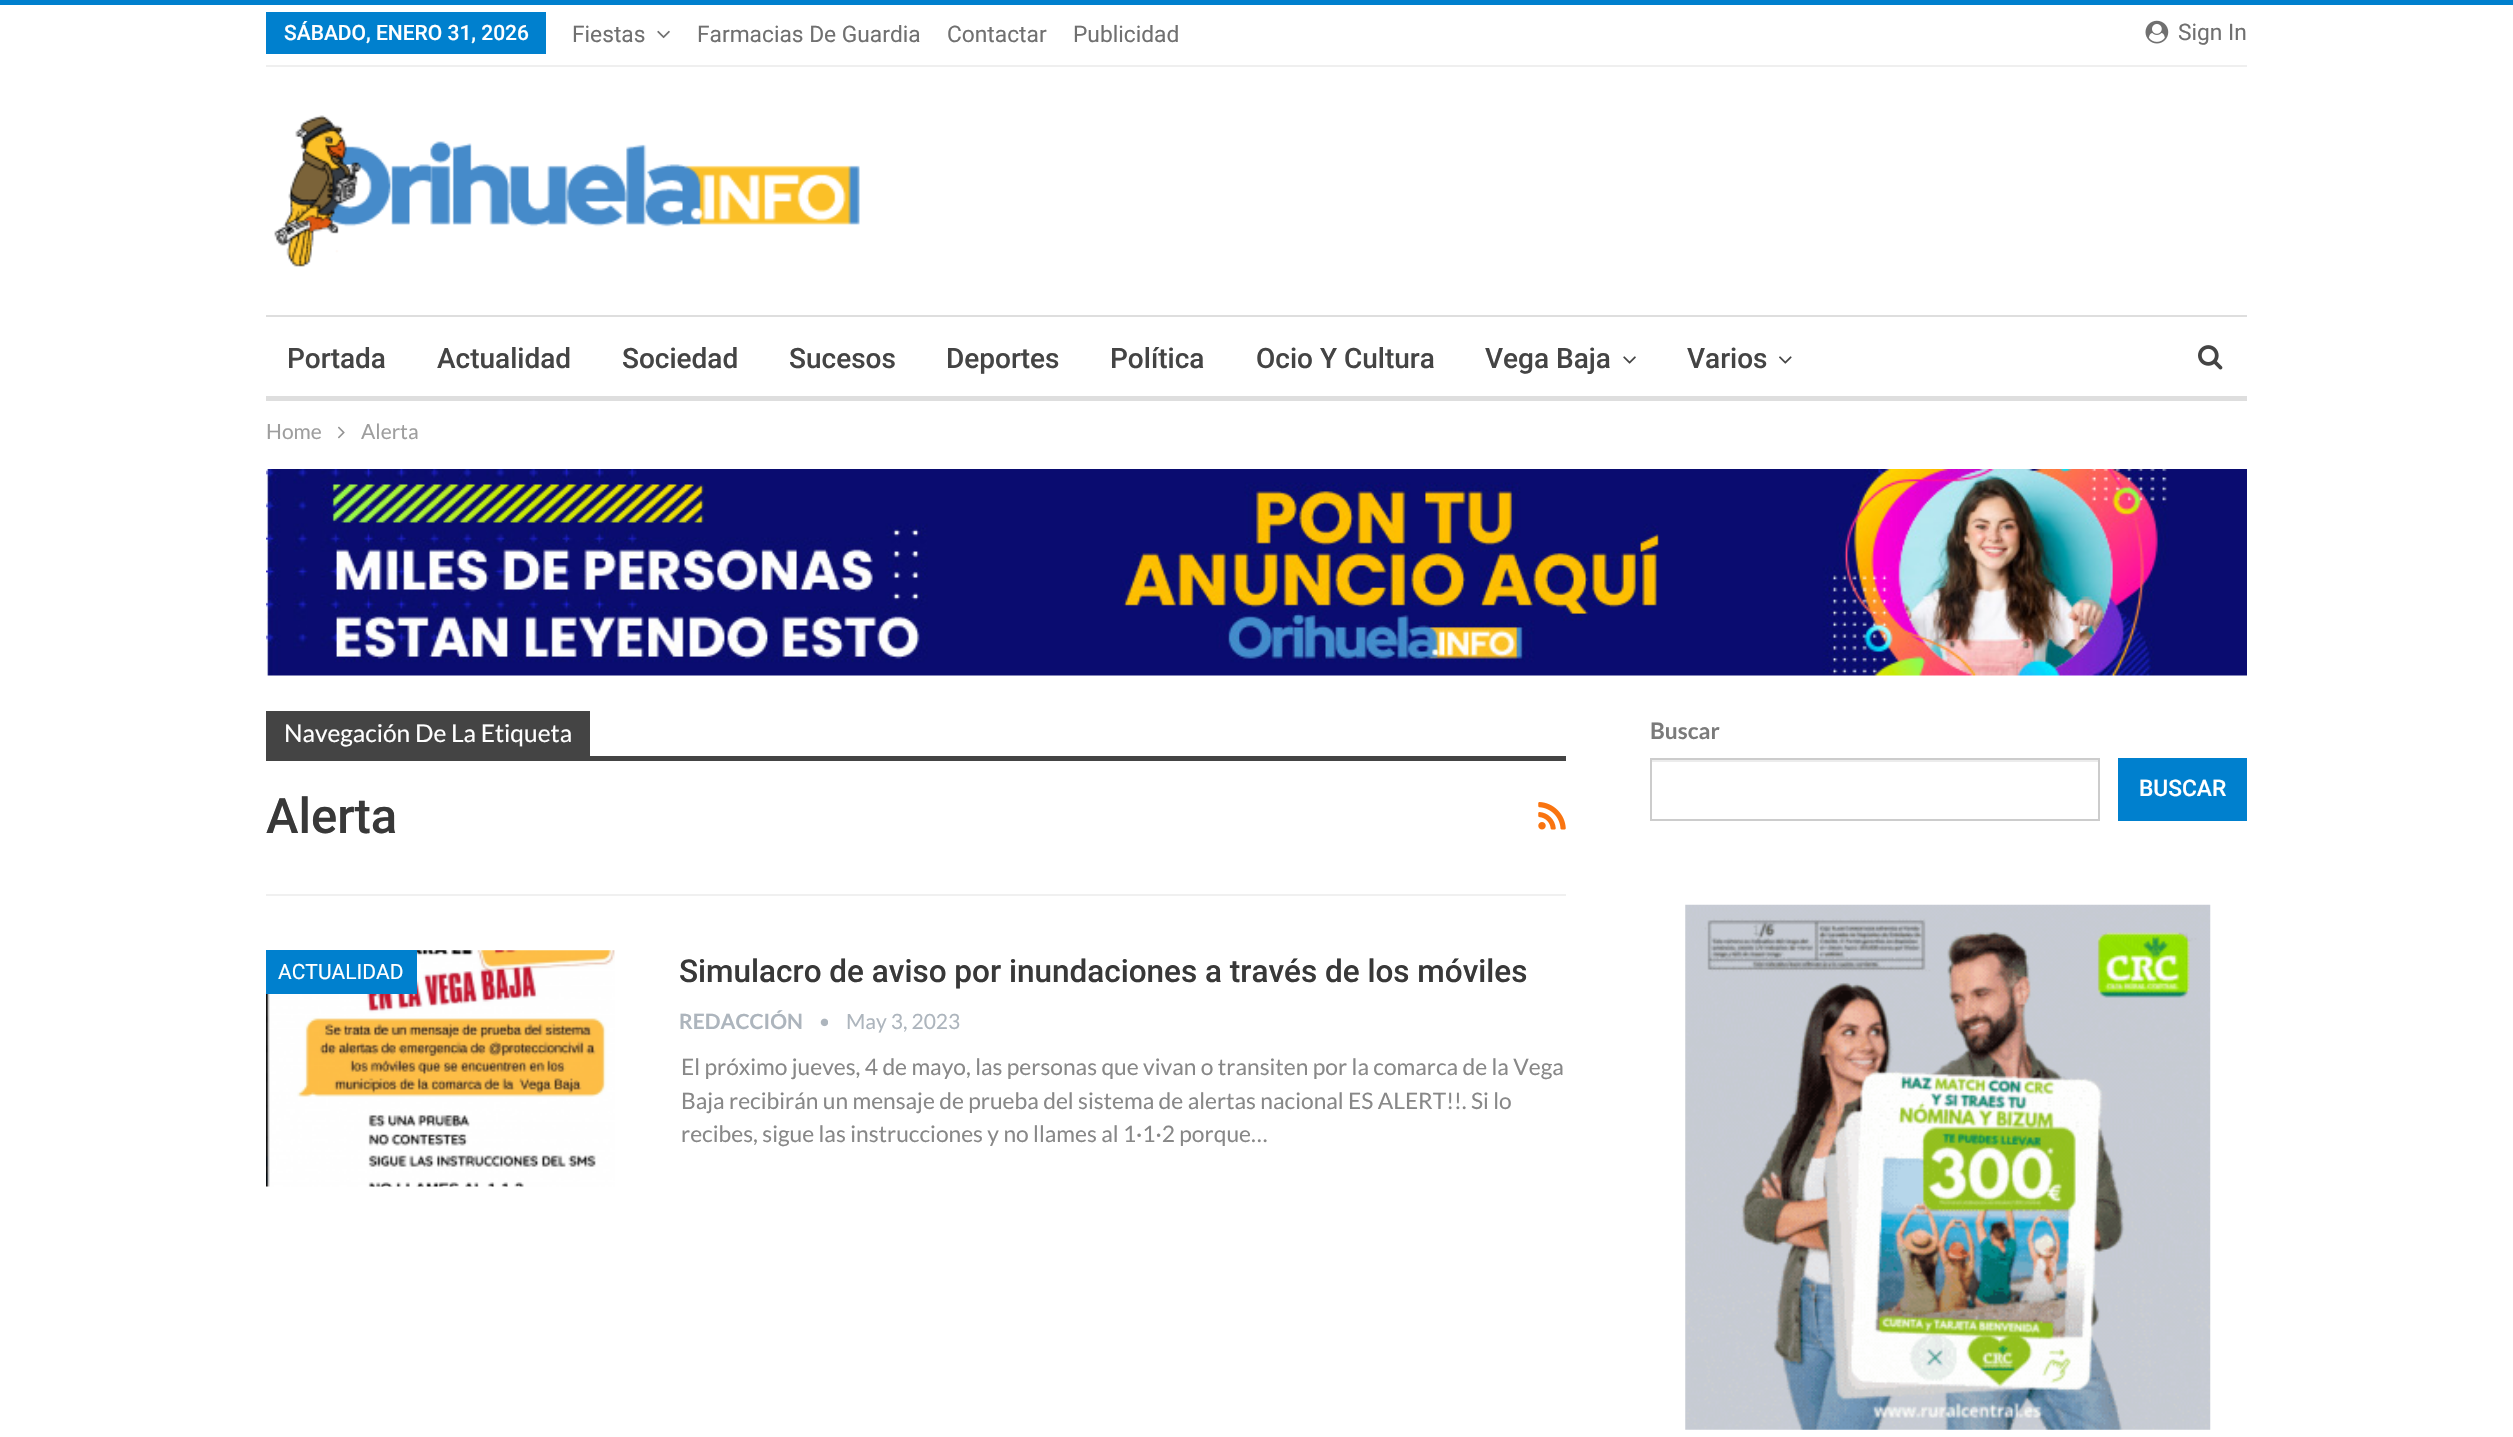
#include "include/core/SkBlurTypes.h"
#include "include/core/SkCanvas.h"
#include "include/core/SkData.h"
#include "include/core/SkFont.h"
#include "include/core/SkFontMgr.h"
#include "include/core/SkImage.h"
#include "include/core/SkMaskFilter.h"
#include "include/core/SkPaint.h"
#include "include/core/SkPathBuilder.h"
#include "include/core/SkTextBlob.h"
#include "include/effects/SkDashPathEffect.h"
#include "include/effects/SkGradientShader.h"
#include "include/utils/SkParsePath.h"

extern sk_sp<SkFontMgr> fontMgr;

static SkFont font(const char* family, int weight, float size, bool italic = false) {
    SkFontStyle style(weight, SkFontStyle::kNormal_Width,
        italic ? SkFontStyle::kItalic_Slant : SkFontStyle::kUpright_Slant);
    SkFont result(fontMgr->matchFamilyStyle(family, style), size);
    result.setSubpixel(true);
    return result;
}

static void drawLabel(SkCanvas* canvas, const char* s, float x, float y, const SkFont& font, SkColor color) {
    SkPaint ink(SkColor4f::FromColor(color));
    ink.setAntiAlias(true);
    canvas->drawString(s, x, y, font, ink);
}

static void fillRect(SkCanvas* canvas, float x, float y, float w, float h, SkColor color) {
    SkPaint ink(SkColor4f::FromColor(color));
    ink.setAntiAlias(true);
    canvas->drawRect(SkRect::MakeXYWH(x, y, w, h), ink);
}

static void drawPhoto(SkCanvas* canvas, const char* path, float x, float y, float w, float h) {
    auto image = SkImages::DeferredFromEncodedData(SkData::MakeFromFileName(path));
    canvas->drawImageRect(image, SkRect::MakeXYWH(x, y, w, h), SkSamplingOptions());
}

void draw(SkCanvas* canvas) {
    SkPaint paint;
    paint.setAntiAlias(true);
    canvas->clear(0xFFFFFFFF);
    fillRect(canvas, 0, 0, 2513, 5, 0xFF0080CE);
    fillRect(canvas, 266, 65, 1981, 2, 0xFFEFEFEF);
    fillRect(canvas, 266, 12, 280, 42, 0xFF0080CE);
    SkFont font1 = font("Roboto", 500, 21);
    drawLabel(canvas, "SÁBADO, ENERO 31, 2026", 284, 40, font1, 0xFFFFFFFF);
    SkFont font2 = font("Roboto", 400, 22.75f);
    drawLabel(canvas, "Fiestas", 572, 42, font2, 0xFF707070);
    drawPhoto(canvas, "assets/img1.png", 657, 30, 13, 9);
    drawLabel(canvas, "Farmacias De Guardia", 697, 42, font2, 0xFF707070);
    drawLabel(canvas, "Contactar", 947, 42, font2, 0xFF707070);
    drawLabel(canvas, "Publicidad", 1073, 42, font2, 0xFF707070);
    drawPhoto(canvas, "assets/img2.png", 2145, 20, 24, 24);
    drawLabel(canvas, "Sign In", 2178, 40, font2, 0xFF707070);
    drawPhoto(canvas, "assets/img3.png", 274, 115, 586, 152);
    fillRect(canvas, 266, 315, 1981, 2, 0xFFDEDEDE);
    fillRect(canvas, 266, 396, 1981, 5, 0xFFDEDEDE);
    SkFont font3 = font("Roboto", 500, 28);
    drawLabel(canvas, "Portada", 287, 368, font3, 0xFF444444);
    drawLabel(canvas, "Actualidad", 437, 368, font3, 0xFF444444);
    drawLabel(canvas, "Sociedad", 622, 368, font3, 0xFF444444);
    drawLabel(canvas, "Sucesos", 789, 368, font3, 0xFF444444);
    drawLabel(canvas, "Deportes", 946, 368, font3, 0xFF444444);
    drawLabel(canvas, "Política", 1110, 368, font3, 0xFF444444);
    drawLabel(canvas, "Ocio Y Cultura", 1256, 368, font3, 0xFF444444);
    drawLabel(canvas, "Vega Baja", 1485, 368, font3, 0xFF444444);
    drawPhoto(canvas, "assets/img4.png", 1623, 356, 13, 8);
    drawLabel(canvas, "Varios", 1687, 368, font3, 0xFF444444);
    drawPhoto(canvas, "assets/img5.png", 1779, 356, 13, 8);
    drawPhoto(canvas, "assets/img6.png", 2198, 345, 25, 25);
    SkFont font4 = font("Lato", 400, 21);
    drawLabel(canvas, "Home", 266, 439, font4, 0xFF9E9E9E);
    drawPhoto(canvas, "assets/img7.png", 338, 426, 7, 13);
    drawLabel(canvas, "Alerta", 361, 439, font4, 0xFF9E9E9E);
    drawPhoto(canvas, "assets/img8.png", 266, 469, 1981, 207);
    fillRect(canvas, 266, 894, 1300, 2, 0xFFF0F0F0);
    fillRect(canvas, 266, 711, 324, 45, 0xFF444444);
    SkFont font5 = font("Lato", 400, 24.5f);
    drawLabel(canvas, "Navegación De La Etiqueta", 284, 742, font5, 0xFFFFFFFF);
    fillRect(canvas, 266, 756, 1300, 5, 0xFF444444);
    SkFont font6 = font("Roboto", 500, 49);
    drawLabel(canvas, "Alerta", 266, 833, font6, 0xFF383838);
    drawPhoto(canvas, "assets/img9.png", 1538, 802, 28, 28);
    drawPhoto(canvas, "assets/img10.png", 266, 950, 349, 237);
    fillRect(canvas, 266, 950, 151, 44, 0xFF0080CE);
    SkFont font7 = font("Roboto", 400, 21);
    drawLabel(canvas, "ACTUALIDAD", 278, 979, font7, 0xFFFFFFFF);
    SkFont font8 = font("Roboto", 500, 31.5f);
    drawLabel(canvas, "Simulacro de aviso por inundaciones a través de los móviles", 679, 982, font8, 0xFF383838);
    SkFont font9 = font("Lato", 700, 21);
    drawLabel(canvas, "REDACCIÓN", 679, 1029, font9, 0xFFADB5BD);
    drawPhoto(canvas, "assets/img11.png", 820, 1018, 8, 9);
    drawLabel(canvas, "May 3, 2023", 846, 1029, font4, 0xFFADB5BD);
    SkFont font10 = font("Lato", 400, 22.75f);
    drawLabel(canvas, "El próximo jueves, 4 de mayo, las personas que vivan o transiten por la comarca de la Vega", 681, 1075, font10, 0xFF888888);
    drawLabel(canvas, "Baja recibirán un mensaje de prueba del sistema de alertas nacional ES ALERT!!. Si lo", 681, 1109, font10, 0xFF888888);
    drawLabel(canvas, "recibes, sigue las instrucciones y no llames al 1·1·2 porque…", 681, 1142, font10, 0xFF888888);
    SkFont font11 = font("Lato", 700, 22.75f);
    drawLabel(canvas, "Buscar", 1650, 739, font11, 0xFF7B7B7B);
    fillRect(canvas, 1652, 760, 446, 2, 0xFFECECEC);
    paint.setStroke(true);
    paint.setStrokeWidth(2);
    paint.setColor(0xFFCCCCCC);
    canvas->drawRect(SkRect::MakeXYWH(1651, 759, 448, 61), paint);
    fillRect(canvas, 2118, 758, 129, 63, 0xFF0080CE);
    SkFont font12 = font("Roboto", 500, 22.75f);
    drawLabel(canvas, "BUSCAR", 2139, 796, font12, 0xFFFFFFFF);
    drawPhoto(canvas, "assets/img12.png", 1685, 904, 526, 526);
}
